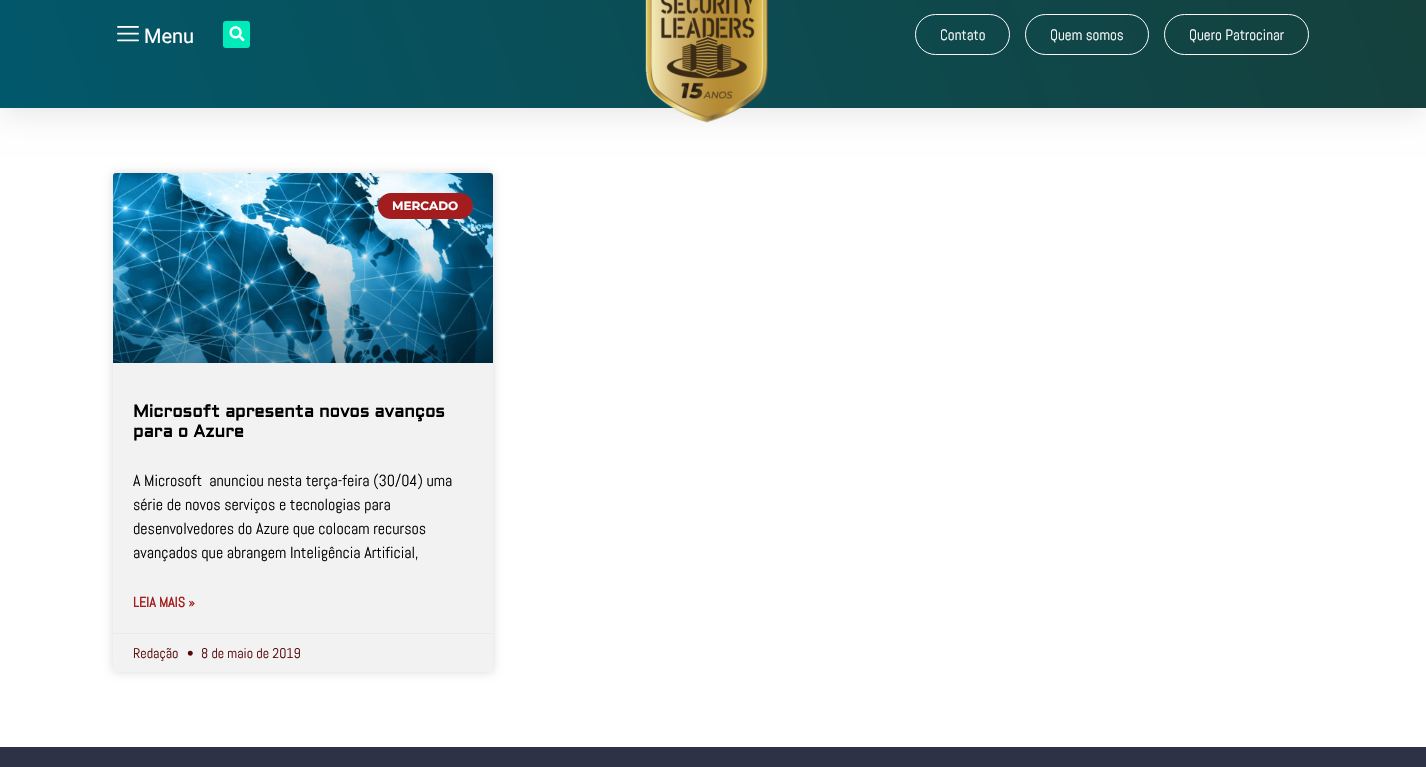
#include "include/core/SkBlurTypes.h"
#include "include/core/SkCanvas.h"
#include "include/core/SkData.h"
#include "include/core/SkFont.h"
#include "include/core/SkFontMgr.h"
#include "include/core/SkImage.h"
#include "include/core/SkMaskFilter.h"
#include "include/core/SkPaint.h"
#include "include/core/SkPathBuilder.h"
#include "include/core/SkTextBlob.h"
#include "include/effects/SkDashPathEffect.h"
#include "include/effects/SkGradientShader.h"
#include "include/utils/SkParsePath.h"

extern sk_sp<SkFontMgr> fontMgr;

static SkFont font(const char* family, int weight, float size, bool italic = false) {
    SkFontStyle style(weight, SkFontStyle::kNormal_Width,
        italic ? SkFontStyle::kItalic_Slant : SkFontStyle::kUpright_Slant);
    SkFont result(fontMgr->matchFamilyStyle(family, style), size);
    result.setSubpixel(true);
    return result;
}

static void drawLabel(SkCanvas* canvas, const char* s, float x, float y, const SkFont& font, SkColor color) {
    SkPaint ink(SkColor4f::FromColor(color));
    ink.setAntiAlias(true);
    canvas->drawString(s, x, y, font, ink);
}

static void fillRect(SkCanvas* canvas, float x, float y, float w, float h, SkColor color) {
    SkPaint ink(SkColor4f::FromColor(color));
    ink.setAntiAlias(true);
    canvas->drawRect(SkRect::MakeXYWH(x, y, w, h), ink);
}

static void fillRRect(SkCanvas* canvas, float x, float y, float w, float h, float radius, SkColor color) {
    SkPaint ink(SkColor4f::FromColor(color));
    ink.setAntiAlias(true);
    canvas->drawRoundRect(SkRect::MakeXYWH(x, y, w, h), radius, radius, ink);
}

static void drawPhoto(SkCanvas* canvas, const char* path, float x, float y, float w, float h) {
    auto image = SkImages::DeferredFromEncodedData(SkData::MakeFromFileName(path));
    canvas->drawImageRect(image, SkRect::MakeXYWH(x, y, w, h), SkSamplingOptions());
}

void draw(SkCanvas* canvas) {
    SkPaint paint;
    paint.setAntiAlias(true);
    canvas->clear(0xFFFFFFFF);
    paint.setColor(0x1A000000);
    paint.setMaskFilter(SkMaskFilter::MakeBlur(kNormal_SkBlurStyle, 15));
    canvas->drawRect(SkRect::MakeXYWH(0, -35, 1426, 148), paint);
    paint.setMaskFilter(nullptr);
    {
        const SkColor colors[] = {0xFF02586B, 0xFF15403B};
        const float stops[] = {0, 1};
        const SkPoint ends[] = {{60, 272}, {1366, -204}};
        paint.setShader(SkGradientShader::MakeLinear(ends, colors, stops, 2, SkTileMode::kClamp));
        paint.setAlpha(255);
    }
    canvas->drawRect(SkRect::MakeXYWH(0, 0, 1426, 108), paint);
    drawPhoto(canvas, "assets/img1.png", 117, 26, 22, 16);
    SkFont font1 = font("Roboto", 400, 20);
    drawLabel(canvas, "Menu", 144, 43, font1, 0xFFFFFFFF);
    fillRRect(canvas, 223, 21, 27, 27, 3, 0xFF01EABA);
    drawPhoto(canvas, "assets/img2.png", 229, 26, 16, 16);
    drawPhoto(canvas, "assets/img3.png", 645, 0, 123, 123);
    paint.setStroke(true);
    paint.setStrokeWidth(1);
    paint.setShader(nullptr);
    paint.setColor(0xFFFFFFFF);
    canvas->drawRoundRect(SkRect::MakeXYWH(915.5f, 14.5f, 94, 40), 20, 20, paint);
    SkFont font2 = font("Abel", 400, 15);
    drawLabel(canvas, "Contato", 940, 40, font2, 0xFFFFFFFF);
    canvas->drawRoundRect(SkRect::MakeXYWH(1025.5f, 14.5f, 123, 40), 20, 20, paint);
    drawLabel(canvas, "Quem somos", 1050, 40, font2, 0xFFFFFFFF);
    canvas->drawRoundRect(SkRect::MakeXYWH(1164.5f, 14.5f, 144, 40), 20, 20, paint);
    drawLabel(canvas, "Quero Patrocinar", 1189, 40, font2, 0xFFFFFFFF);
    paint.setStroke(false);
    paint.setColor(0x26000000);
    paint.setMaskFilter(SkMaskFilter::MakeBlur(kNormal_SkBlurStyle, 5));
    canvas->drawRoundRect(SkRect::MakeXYWH(113, 173, 380, 499), 3, 3, paint);
    paint.setMaskFilter(nullptr);
    fillRRect(canvas, 113, 173, 380, 499, 3, 0xFFF2F2F2);
    drawPhoto(canvas, "assets/img4.png", 113, 173, 380, 190);
    {
        const SkColor colors[] = {0x59000000, 0x00000000};
        const float stops[] = {0, 0.75f};
        const SkPoint ends[] = {{303, 363}, {303, 173}};
        paint.setShader(SkGradientShader::MakeLinear(ends, colors, stops, 2, SkTileMode::kClamp));
        paint.setAlpha(255);
    }
    canvas->drawRect(SkRect::MakeXYWH(113, 229, 380, 134), paint);
    fillRRect(canvas, 378, 193, 95, 26, 13, 0xFFA41D1E);
    SkFont font3 = font("Montserrat", 700, 12);
    drawLabel(canvas, "MERCADO", 392, 210, font3, 0xFFFFFFFF);
    SkFont font4 = font("Aldrich", 700, 17);
    drawLabel(canvas, "Microsoft apresenta novos avanços", 133, 417, font4, 0xFF000000);
    drawLabel(canvas, "para o Azure", 133, 437, font4, 0xFF000000);
    SkFont font5 = font("Abel", 400, 16);
    drawLabel(canvas, "A Microsoft  anunciou nesta terça-feira (30/04) uma", 133, 486, font5, 0xFF000000);
    drawLabel(canvas, "série de novos serviços e tecnologias para", 133, 510, font5, 0xFF000000);
    drawLabel(canvas, "desenvolvedores do Azure que colocam recursos", 133, 534, font5, 0xFF000000);
    drawLabel(canvas, "avançados que abrangem Inteligência Artificial,", 133, 558, font5, 0xFF000000);
    SkFont font6 = font("Abel", 700, 14);
    drawLabel(canvas, "LEIA MAIS »", 133, 607, font6, 0xFFA41D1E);
    fillRect(canvas, 113, 633, 380, 1, 0xFFEAEAEA);
    SkFont font7 = font("Abel", 400, 14);
    drawLabel(canvas, "Redação", 133, 658, font7, 0xFF560708);
    drawLabel(canvas, "•", 187, 658, font7, 0xFF560708);
    drawLabel(canvas, "8 de maio de 2019", 201, 658, font7, 0xFF560708);
    fillRect(canvas, 0, 747, 1426, 20, 0xFF2E3246);
}
